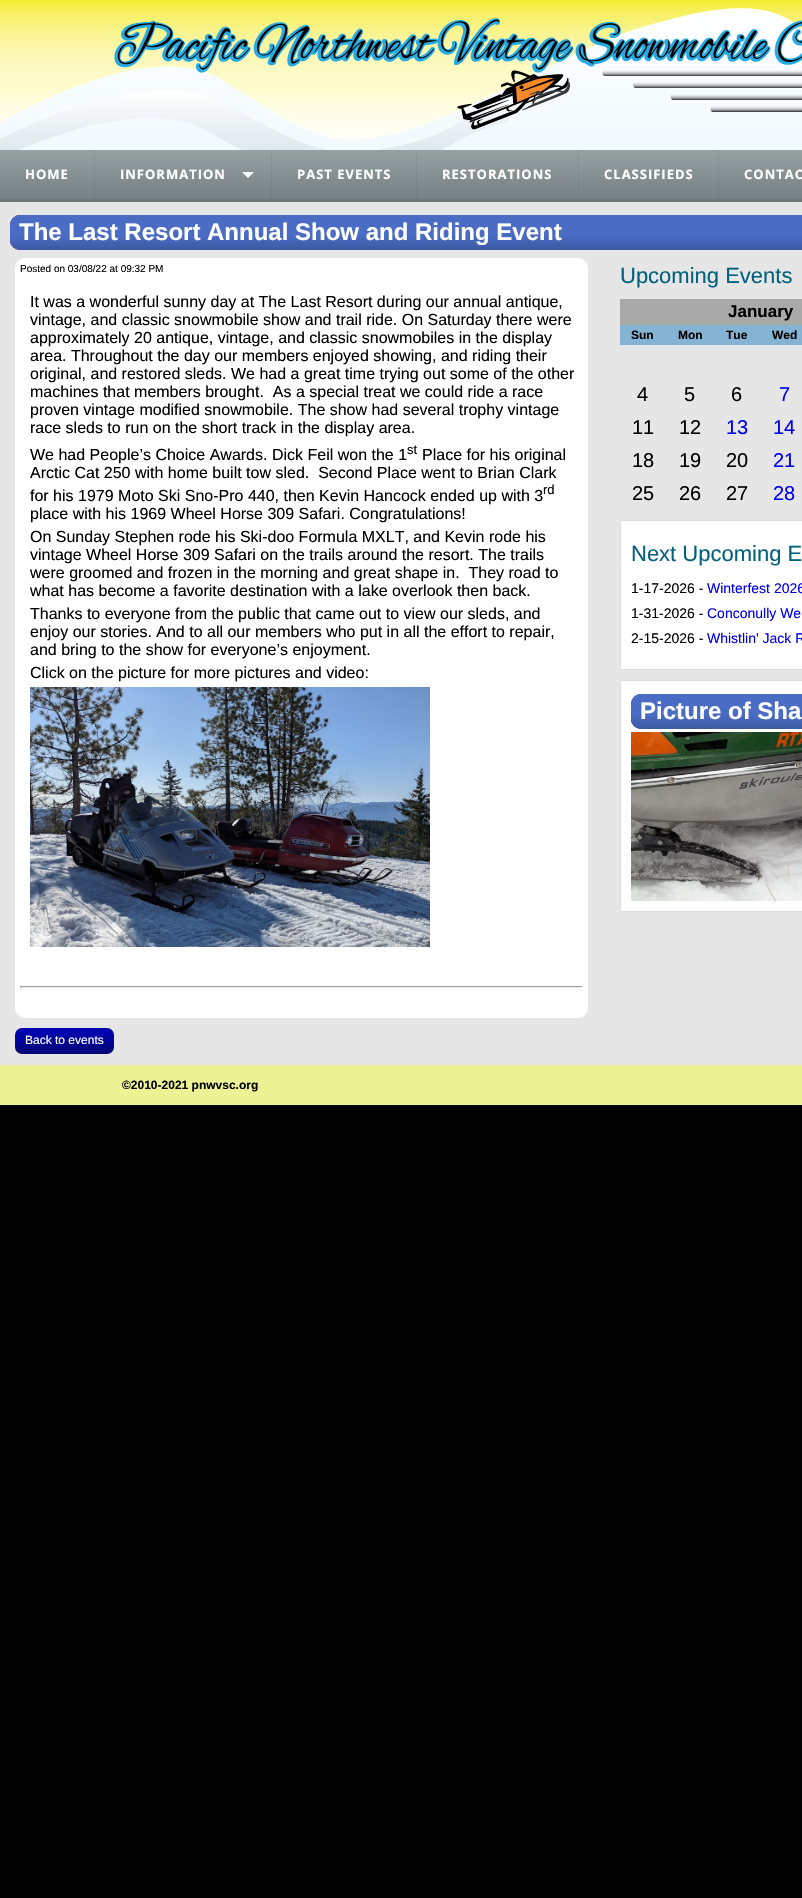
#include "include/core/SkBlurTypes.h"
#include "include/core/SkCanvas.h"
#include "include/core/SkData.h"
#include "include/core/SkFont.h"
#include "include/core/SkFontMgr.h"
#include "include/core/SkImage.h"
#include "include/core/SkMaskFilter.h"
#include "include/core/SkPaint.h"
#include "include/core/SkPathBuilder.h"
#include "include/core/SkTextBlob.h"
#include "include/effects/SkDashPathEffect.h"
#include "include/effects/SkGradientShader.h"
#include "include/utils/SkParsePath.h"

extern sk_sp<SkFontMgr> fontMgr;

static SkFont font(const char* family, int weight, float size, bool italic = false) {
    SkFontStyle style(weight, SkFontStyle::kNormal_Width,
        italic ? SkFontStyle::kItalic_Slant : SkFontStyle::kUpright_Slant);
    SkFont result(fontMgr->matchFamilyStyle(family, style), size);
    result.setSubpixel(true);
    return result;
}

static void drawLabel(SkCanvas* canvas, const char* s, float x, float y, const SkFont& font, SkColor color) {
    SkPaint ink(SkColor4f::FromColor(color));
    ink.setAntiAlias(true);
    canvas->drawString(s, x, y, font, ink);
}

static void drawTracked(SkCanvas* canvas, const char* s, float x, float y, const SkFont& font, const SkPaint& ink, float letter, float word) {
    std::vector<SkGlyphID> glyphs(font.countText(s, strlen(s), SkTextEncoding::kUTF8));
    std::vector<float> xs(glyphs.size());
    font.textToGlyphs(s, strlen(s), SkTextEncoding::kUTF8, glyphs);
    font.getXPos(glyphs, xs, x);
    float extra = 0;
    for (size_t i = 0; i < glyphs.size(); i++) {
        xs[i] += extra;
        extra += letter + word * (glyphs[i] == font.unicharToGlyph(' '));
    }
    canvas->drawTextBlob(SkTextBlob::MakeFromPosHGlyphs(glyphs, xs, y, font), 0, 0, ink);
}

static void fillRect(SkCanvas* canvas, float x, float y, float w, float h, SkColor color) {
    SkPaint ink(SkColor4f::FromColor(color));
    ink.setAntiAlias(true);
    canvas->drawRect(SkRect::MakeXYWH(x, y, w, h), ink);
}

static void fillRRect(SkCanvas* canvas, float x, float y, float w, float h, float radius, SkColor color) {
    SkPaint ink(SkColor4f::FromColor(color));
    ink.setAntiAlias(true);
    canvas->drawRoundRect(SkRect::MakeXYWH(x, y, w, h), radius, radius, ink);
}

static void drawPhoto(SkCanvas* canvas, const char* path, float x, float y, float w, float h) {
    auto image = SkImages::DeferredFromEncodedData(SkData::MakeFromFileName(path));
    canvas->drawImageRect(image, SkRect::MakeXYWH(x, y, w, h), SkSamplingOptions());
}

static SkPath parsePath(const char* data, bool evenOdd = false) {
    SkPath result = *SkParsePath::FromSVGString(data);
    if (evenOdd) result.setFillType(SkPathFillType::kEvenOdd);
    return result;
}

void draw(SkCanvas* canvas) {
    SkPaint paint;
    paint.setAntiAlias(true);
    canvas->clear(0xFF000000);
    drawPhoto(canvas, "assets/img1.png", 0, 0, 802, 150);
    {
        const SkColor colors[] = {0xFF98A1A2, 0xFF737E80};
        const float stops[] = {0, 1};
        const SkPoint ends[] = {{480, 150}, {480, 202}};
        paint.setShader(SkGradientShader::MakeLinear(ends, colors, stops, 2, SkTileMode::kClamp));
        paint.setAlpha(255);
    }
    canvas->drawRect(SkRect::MakeXYWH(0, 150, 802, 49), paint);
    fillRect(canvas, 0, 199, 802, 3, 0xFF6E797B);
    fillRect(canvas, 94, 150, 1, 52, 0x1F505050);
    SkFont font1 = font("Open Sans", 700, 13);
    paint.setShader(nullptr);
    paint.setColor(0xFFFFFFFF);
    drawTracked(canvas, "HOME", 25, 179, font1, paint, 1, 0);
    fillRect(canvas, 271, 150, 1, 52, 0x1F505050);
    drawTracked(canvas, "INFORMATION", 120, 179, font1, paint, 1, 0);
    canvas->drawPath(parsePath("M242 172H254L248 178Z"), paint);
    fillRect(canvas, 416, 150, 1, 52, 0x1F505050);
    drawTracked(canvas, "PAST EVENTS", 297, 179, font1, paint, 1, 0);
    fillRect(canvas, 578, 150, 1, 52, 0x1F505050);
    drawTracked(canvas, "RESTORATIONS", 442, 179, font1, paint, 1, 0);
    fillRect(canvas, 718, 150, 1, 52, 0x1F505050);
    drawTracked(canvas, "CLASSIFIEDS", 604, 179, font1, paint, 1, 0);
    drawTracked(canvas, "CONTAC", 744, 179, font1, paint, 1, 0);
    fillRect(canvas, 0, 202, 802, 863, 0xFFE7E6E7);
    fillRRect(canvas, 10, 215, 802, 35, 10, 0xFF090D4B);
    drawPhoto(canvas, "assets/img2.png", 10, 215, 792, 35);
    SkFont font2 = font("Liberation Sans", 700, 24);
    drawLabel(canvas, "The Last Resort Annual Show and Riding Event", 19, 240, font2, 0xFFFFFFFF);
    fillRRect(canvas, 15, 258, 573, 760, 10, 0xFFFFFFFF);
    SkFont font3 = font("Liberation Sans", 400, 10);
    drawLabel(canvas, "Posted on 03/08/22 at 09:32 PM", 20, 272, font3, 0xFF000000);
    SkFont font4 = font("Liberation Sans", 400, 16);
    drawLabel(canvas, "It was a wonderful sunny day at The Last Resort during our annual antique,", 30, 307, font4, 0xFF000000);
    drawLabel(canvas, "vintage, and classic snowmobile show and trail ride. On Saturday there were", 30, 325, font4, 0xFF000000);
    drawLabel(canvas, "approximately 20 antique, vintage, and classic snowmobiles in the display", 30, 343, font4, 0xFF000000);
    drawLabel(canvas, "area. Throughout the day our members enjoyed showing, and riding their", 30, 361, font4, 0xFF000000);
    drawLabel(canvas, "original, and restored sleds. We had a great time trying out some of the other", 30, 379, font4, 0xFF000000);
    drawLabel(canvas, "machines that members brought.  As a special treat we could ride a race", 30, 397, font4, 0xFF000000);
    drawLabel(canvas, "proven vintage modified snowmobile. The show had several trophy vintage", 30, 415, font4, 0xFF000000);
    drawLabel(canvas, "race sleds to run on the short track in the display area.", 30, 433, font4, 0xFF000000);
    drawLabel(canvas, "We had People’s Choice Awards. Dick Feil won the 1", 30, 460, font4, 0xFF000000);
    SkFont font5 = font("Liberation Sans", 400, 13);
    drawLabel(canvas, "st", 407, 454, font5, 0xFF000000);
    drawLabel(canvas, "Place for his original", 422, 460, font4, 0xFF000000);
    drawLabel(canvas, "Arctic Cat 250 with home built tow sled.  Second Place went to Brian Clark", 30, 478, font4, 0xFF000000);
    drawLabel(canvas, "for his 1979 Moto Ski Sno-Pro 440, then Kevin Hancock ended up with 3", 30, 501, font4, 0xFF000000);
    drawLabel(canvas, "rd", 543, 494, font5, 0xFF000000);
    drawLabel(canvas, "place with his 1969 Wheel Horse 309 Safari. Congratulations!", 30, 519, font4, 0xFF000000);
    drawLabel(canvas, "On Sunday Stephen rode his Ski-doo Formula MXLT, and Kevin rode his", 30, 542, font4, 0xFF000000);
    drawLabel(canvas, "vintage Wheel Horse 309 Safari on the trails around the resort. The trails", 30, 560, font4, 0xFF000000);
    drawLabel(canvas, "were groomed and frozen in the morning and great shape in.  They road to", 30, 578, font4, 0xFF000000);
    drawLabel(canvas, "what has become a favorite destination with a lake overlook then back.", 30, 596, font4, 0xFF000000);
    drawLabel(canvas, "Thanks to everyone from the public that came out to view our sleds, and", 30, 619, font4, 0xFF000000);
    drawLabel(canvas, "enjoy our stories. And to all our members who put in all the effort to repair,", 30, 637, font4, 0xFF000000);
    drawLabel(canvas, "and bring to the show for everyone’s enjoyment.", 30, 655, font4, 0xFF000000);
    drawLabel(canvas, "Click on the picture for more pictures and video:", 30, 678, font4, 0xFF000000);
    drawPhoto(canvas, "assets/img3.png", 30, 687, 400, 260);
    fillRect(canvas, 20, 986, 563, 1, 0xFF9F9F9F);
    fillRect(canvas, 582, 986, 1, 2, 0xFFEEEEEE);
    fillRect(canvas, 20, 987, 563, 1, 0xFFEEEEEE);
    fillRect(canvas, 20, 986, 1, 2, 0xFF9F9F9F);
    drawPhoto(canvas, "assets/img4.png", 15, 1028, 99, 26);
    SkFont font6 = font("Liberation Sans", 400, 12);
    drawLabel(canvas, "Back to events", 25, 1044, font6, 0xFFFFFFFF);
    SkFont font7 = font("Liberation Sans", 400, 22);
    drawLabel(canvas, "Upcoming Events", 620, 283, font7, 0xFF00617D);
    fillRect(canvas, 620, 299, 182, 26, 0xFFA9A9A9);
    SkFont font8 = font("Liberation Sans", 700, 17);
    drawLabel(canvas, "January", 728, 317, font8, 0xFF000000);
    fillRect(canvas, 620, 325, 182, 20, 0xFF84B3D3);
    SkFont font9 = font("Liberation Sans", 700, 12);
    drawLabel(canvas, "Sun", 631, 339, font9, 0xFF000000);
    drawLabel(canvas, "Mon", 678, 339, font9, 0xFF000000);
    drawLabel(canvas, "Tue", 726, 339, font9, 0xFF000000);
    drawLabel(canvas, "Wed", 772, 339, font9, 0xFF000000);
    SkFont font10 = font("Liberation Sans", 400, 20);
    drawLabel(canvas, "4", 637, 401, font10, 0xFF000000);
    drawLabel(canvas, "5", 684, 401, font10, 0xFF000000);
    drawLabel(canvas, "6", 731, 401, font10, 0xFF000000);
    drawLabel(canvas, "7", 779, 401, font10, 0xFF0000EE);
    drawLabel(canvas, "11", 632, 434, font10, 0xFF000000);
    drawLabel(canvas, "12", 679, 434, font10, 0xFF000000);
    drawLabel(canvas, "13", 726, 434, font10, 0xFF0000EE);
    drawLabel(canvas, "14", 773, 434, font10, 0xFF0000EE);
    drawLabel(canvas, "18", 632, 467, font10, 0xFF000000);
    drawLabel(canvas, "19", 679, 467, font10, 0xFF000000);
    drawLabel(canvas, "20", 726, 467, font10, 0xFF000000);
    drawLabel(canvas, "21", 773, 467, font10, 0xFF0000EE);
    drawLabel(canvas, "25", 632, 500, font10, 0xFF000000);
    drawLabel(canvas, "26", 679, 500, font10, 0xFF000000);
    drawLabel(canvas, "27", 726, 500, font10, 0xFF000000);
    drawLabel(canvas, "28", 773, 500, font10, 0xFF0000EE);
    canvas->drawRect(SkRect::MakeXYWH(620.5f, 520.5f, 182, 149), paint);
    paint.setStroke(true);
    paint.setStrokeWidth(1);
    paint.setColor(0xFFDDDDDD);
    canvas->drawRect(SkRect::MakeXYWH(620.5f, 520.5f, 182, 149), paint);
    drawLabel(canvas, "Next Upcoming E", 631, 561, font7, 0xFF00617D);
    SkFont font11 = font("Liberation Sans", 400, 14);
    drawLabel(canvas, "1-17-2026 -", 631, 593, font11, 0xFF000000);
    drawLabel(canvas, "Winterfest 2026", 707, 593, font11, 0xFF0000EE);
    drawLabel(canvas, "1-31-2026 -", 631, 618, font11, 0xFF000000);
    drawLabel(canvas, "Conconully We", 707, 618, font11, 0xFF0000EE);
    drawLabel(canvas, "2-15-2026 -", 631, 643, font11, 0xFF000000);
    drawLabel(canvas, "Whistlin' Jack R", 707, 643, font11, 0xFF0000EE);
    paint.setStroke(false);
    paint.setColor(0xFFFFFFFF);
    canvas->drawRect(SkRect::MakeXYWH(620.5f, 680.5f, 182, 231), paint);
    paint.setStroke(true);
    paint.setColor(0xFFDDDDDD);
    canvas->drawRect(SkRect::MakeXYWH(620.5f, 680.5f, 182, 231), paint);
    fillRRect(canvas, 631, 694, 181, 35, 10, 0xFF090D4B);
    drawPhoto(canvas, "assets/img5.png", 631, 694, 171, 35);
    drawLabel(canvas, "Picture of Sha", 640, 719, font2, 0xFFFFFFFF);
    drawPhoto(canvas, "assets/img6.png", 631, 732, 171, 169);
    fillRect(canvas, 0, 1065, 802, 40, 0xFFECF395);
    drawLabel(canvas, "©2010-2021 pnwvsc.org", 122, 1089, font9, 0xFF000000);
}
